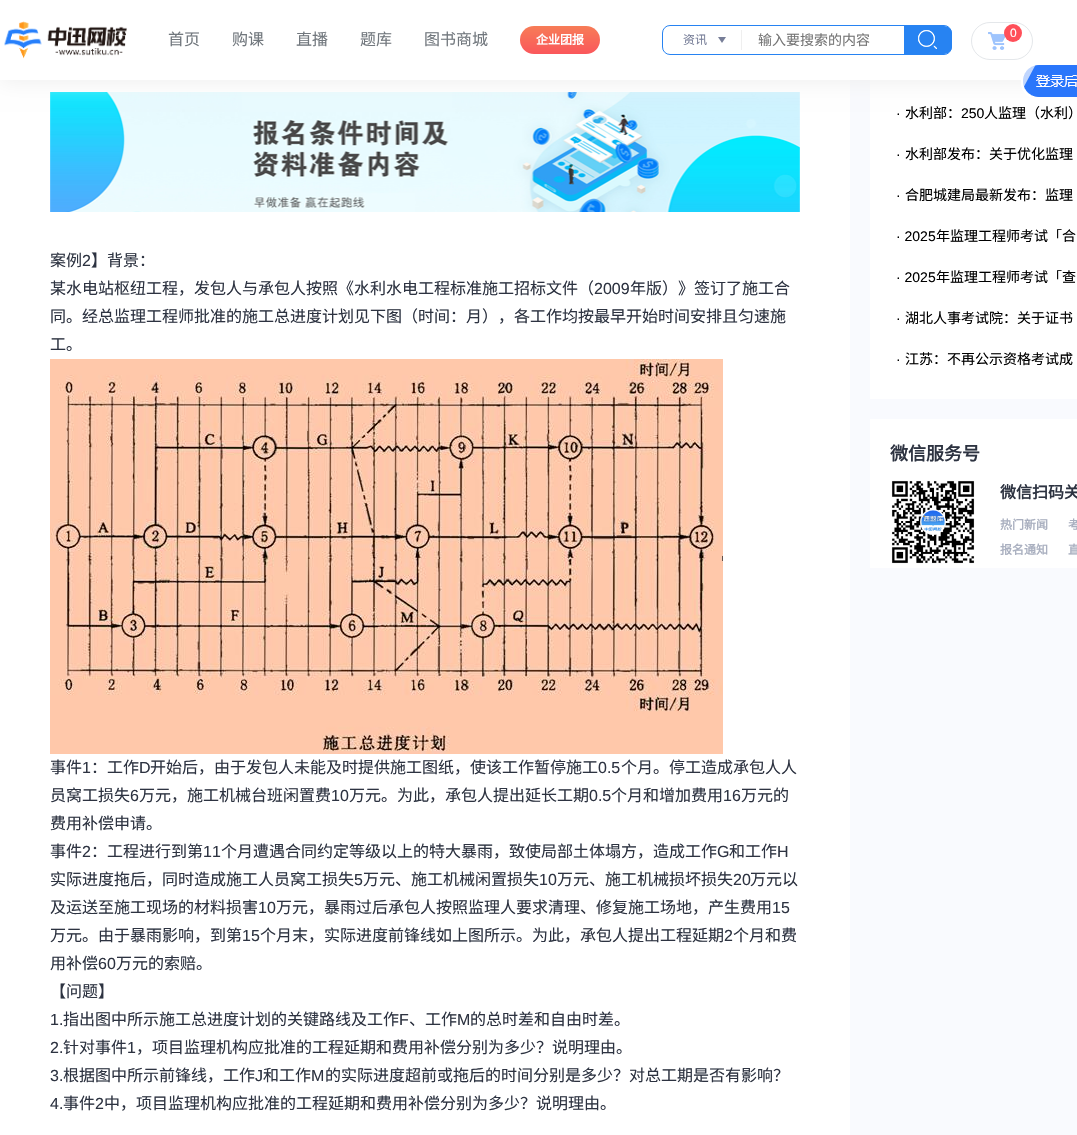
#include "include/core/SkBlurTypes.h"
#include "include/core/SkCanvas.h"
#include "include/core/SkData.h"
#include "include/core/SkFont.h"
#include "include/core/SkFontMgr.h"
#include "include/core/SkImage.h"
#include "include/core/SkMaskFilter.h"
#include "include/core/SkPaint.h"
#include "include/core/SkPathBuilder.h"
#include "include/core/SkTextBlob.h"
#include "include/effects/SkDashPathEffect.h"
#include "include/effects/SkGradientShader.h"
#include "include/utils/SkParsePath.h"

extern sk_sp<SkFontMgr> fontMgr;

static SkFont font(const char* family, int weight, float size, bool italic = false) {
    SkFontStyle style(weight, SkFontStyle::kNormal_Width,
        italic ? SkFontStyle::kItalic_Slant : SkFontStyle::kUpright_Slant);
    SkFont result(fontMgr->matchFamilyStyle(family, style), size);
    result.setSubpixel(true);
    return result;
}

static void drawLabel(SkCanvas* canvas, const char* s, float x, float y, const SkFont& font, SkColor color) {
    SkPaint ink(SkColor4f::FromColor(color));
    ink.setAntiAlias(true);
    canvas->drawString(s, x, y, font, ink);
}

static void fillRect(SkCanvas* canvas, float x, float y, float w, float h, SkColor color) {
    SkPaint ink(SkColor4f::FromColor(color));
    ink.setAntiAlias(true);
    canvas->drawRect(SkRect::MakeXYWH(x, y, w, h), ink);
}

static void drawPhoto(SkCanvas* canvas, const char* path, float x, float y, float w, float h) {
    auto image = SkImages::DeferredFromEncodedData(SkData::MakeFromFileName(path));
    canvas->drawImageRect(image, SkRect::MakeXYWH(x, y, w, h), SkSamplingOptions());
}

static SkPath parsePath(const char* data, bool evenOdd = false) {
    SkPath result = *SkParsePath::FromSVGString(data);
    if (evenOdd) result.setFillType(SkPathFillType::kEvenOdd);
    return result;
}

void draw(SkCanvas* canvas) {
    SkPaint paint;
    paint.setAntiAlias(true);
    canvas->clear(0xFFF9FAFE);
    fillRect(canvas, 0, 80, 850, 1055, 0xFFFFFFFF);
    drawPhoto(canvas, "assets/img6.png", 50, 92, 750, 120);
    fillRect(canvas, 870, 80, 207, 319, 0xFFFFFFFF);
    paint.setColor(0xFFEFEFEF);
    paint.setMaskFilter(SkMaskFilter::MakeBlur(kNormal_SkBlurStyle, 10));
    canvas->drawRect(SkRect::MakeXYWH(0, 2, 1077, 80), paint);
    paint.setMaskFilter(nullptr);
    fillRect(canvas, 0, 0, 1077, 80, 0xFFFFFFFF);
    drawPhoto(canvas, "assets/img1.png", 4, 21, 123, 38);
    SkFont font1 = font("Noto Sans CJK SC", 400, 16);
    drawLabel(canvas, "首页", 168, 45, font1, 0xFF71777D);
    drawLabel(canvas, "购课", 232, 45, font1, 0xFF71777D);
    drawLabel(canvas, "直播", 296, 45, font1, 0xFF71777D);
    drawLabel(canvas, "题库", 360, 45, font1, 0xFF71777D);
    drawLabel(canvas, "图书商城", 424, 45, font1, 0xFF71777D);
    {
        const SkColor colors[] = {0xFFF77C57, 0xFFFA575B};
        const float stops[] = {0, 1};
        const SkPoint ends[] = {{560, 26}, {560, 54}};
        paint.setShader(SkGradientShader::MakeLinear(ends, colors, stops, 2, SkTileMode::kClamp));
        paint.setAlpha(255);
    }
    canvas->drawRoundRect(SkRect::MakeXYWH(520, 26, 80, 28), 14, 14, paint);
    SkFont font2 = font("Noto Sans CJK SC", 700, 12);
    drawLabel(canvas, "企业团报", 536, 44, font2, 0xFFFFFFFF);
    paint.setStroke(true);
    paint.setStrokeWidth(1);
    paint.setShader(nullptr);
    paint.setColor(0xFF2783F2);
    canvas->drawRoundRect(SkRect::MakeXYWH(662.5f, 25.5f, 289, 29), 7.5f, 7.5f, paint);
    drawPhoto(canvas, "assets/img2.png", 718, 37, 8, 6);
    fillRect(canvas, 741, 30, 1, 20, 0xFFEFEFEF);
    SkFont font3 = font("Noto Sans CJK SC", 400, 12);
    drawLabel(canvas, "资讯", 683, 44, font3, 0xFF777E98);
    SkFont font4 = font("Noto Sans CJK SC", 400, 14);
    drawLabel(canvas, "输入要搜索的内容", 758, 45, font4, 0xFF757575);
    paint.setStroke(false);
    canvas->drawPath(parsePath("M904 26H944C948.5 26 952 29.5 952 34V46C952 50.5 948.5 54 944 54H904Z"), paint);
    drawPhoto(canvas, "assets/img3.png", 918, 30, 19, 19);
    drawPhoto(canvas, "assets/img4.png", 988, 32, 17, 18);
    paint.setStroke(true);
    paint.setColor(0xFFE4E7EA);
    canvas->drawRoundRect(SkRect::MakeXYWH(971.5f, 22.5f, 61, 37), 18.5f, 18.5f, paint);
    paint.setStroke(false);
    paint.setColor(0xFFFF4F59);
    canvas->drawCircle(1013, 33, 9, paint);
    SkFont font5 = font("Liberation Sans", 400, 12);
    drawLabel(canvas, "0", 1010, 37, font5, 0xFFFFFFFF);
    drawPhoto(canvas, "assets/img5.png", 1021, 65, 56, 32);
    drawLabel(canvas, "案例", 50, 266, font1, 0xFF2D3341);
    SkFont font6 = font("Liberation Sans", 400, 16);
    drawLabel(canvas, "2", 82, 266, font6, 0xFF2D3341);
    drawLabel(canvas, "】背景：", 91, 266, font1, 0xFF2D3341);
    drawLabel(canvas, "某水电站枢纽工程，发包人与承包人按照《水利水电工程标准施工招标文件（", 50, 294, font1, 0xFF2D3341);
    drawLabel(canvas, "2009", 594, 294, font6, 0xFF2D3341);
    drawLabel(canvas, "年版）》签订了施工合", 630, 294, font1, 0xFF2D3341);
    drawLabel(canvas, "同。经总监理工程师批准的施工总进度计划见下图（时间：月），各工作均按最早开始时间安排且匀速施", 50, 322, font1, 0xFF2D3341);
    drawLabel(canvas, "工。", 50, 350, font1, 0xFF2D3341);
    drawPhoto(canvas, "assets/img7.png", 50, 359, 673, 395);
    drawLabel(canvas, "事件", 50, 773, font1, 0xFF2D3341);
    drawLabel(canvas, "1", 82, 773, font6, 0xFF2D3341);
    drawLabel(canvas, "：工作", 91, 773, font1, 0xFF2D3341);
    drawLabel(canvas, "D", 139, 773, font6, 0xFF2D3341);
    drawLabel(canvas, "开始后，由于发包人未能及时提供施工图纸，使该工作暂停施工", 150, 773, font1, 0xFF2D3341);
    drawLabel(canvas, "0.5", 598, 773, font6, 0xFF2D3341);
    drawLabel(canvas, "个月。停工造成承包人人", 621, 773, font1, 0xFF2D3341);
    drawLabel(canvas, "员窝工损失", 50, 801, font1, 0xFF2D3341);
    drawLabel(canvas, "6", 130, 801, font6, 0xFF2D3341);
    drawLabel(canvas, "万元，施工机械台班闲置费", 139, 801, font1, 0xFF2D3341);
    drawLabel(canvas, "10", 331, 801, font6, 0xFF2D3341);
    drawLabel(canvas, "万元。为此，承包人提出延长工期", 349, 801, font1, 0xFF2D3341);
    drawLabel(canvas, "0.5", 589, 801, font6, 0xFF2D3341);
    drawLabel(canvas, "个月和增加费用", 611, 801, font1, 0xFF2D3341);
    drawLabel(canvas, "16", 723, 801, font6, 0xFF2D3341);
    drawLabel(canvas, "万元的", 741, 801, font1, 0xFF2D3341);
    drawLabel(canvas, "费用补偿申请。", 50, 829, font1, 0xFF2D3341);
    drawLabel(canvas, "事件", 50, 857, font1, 0xFF2D3341);
    drawLabel(canvas, "2", 82, 857, font6, 0xFF2D3341);
    drawLabel(canvas, "：工程进行到第", 91, 857, font1, 0xFF2D3341);
    drawLabel(canvas, "11", 203, 857, font6, 0xFF2D3341);
    drawLabel(canvas, "个月遭遇合同约定等级以上的特大暴雨，致使局部土体塌方，造成工作", 221, 857, font1, 0xFF2D3341);
    drawLabel(canvas, "G", 717, 857, font6, 0xFF2D3341);
    drawLabel(canvas, "和工作", 729, 857, font1, 0xFF2D3341);
    drawLabel(canvas, "H", 777, 857, font6, 0xFF2D3341);
    drawLabel(canvas, "实际进度拖后，同时造成施工人员窝工损失", 50, 885, font1, 0xFF2D3341);
    drawLabel(canvas, "5", 354, 885, font6, 0xFF2D3341);
    drawLabel(canvas, "万元、施工机械闲置损失", 363, 885, font1, 0xFF2D3341);
    drawLabel(canvas, "10", 539, 885, font6, 0xFF2D3341);
    drawLabel(canvas, "万元、施工机械损坏损失", 557, 885, font1, 0xFF2D3341);
    drawLabel(canvas, "20", 733, 885, font6, 0xFF2D3341);
    drawLabel(canvas, "万元以", 750, 885, font1, 0xFF2D3341);
    drawLabel(canvas, "及运送至施工现场的材料损害", 50, 913, font1, 0xFF2D3341);
    drawLabel(canvas, "10", 258, 913, font6, 0xFF2D3341);
    drawLabel(canvas, "万元，暴雨过后承包人按照监理人要求清理、修复施工场地，产生费用", 276, 913, font1, 0xFF2D3341);
    drawLabel(canvas, "15", 772, 913, font6, 0xFF2D3341);
    drawLabel(canvas, "万元。由于暴雨影响，到第", 50, 941, font1, 0xFF2D3341);
    drawLabel(canvas, "15", 242, 941, font6, 0xFF2D3341);
    drawLabel(canvas, "个月末，实际进度前锋线如上图所示。为此，承包人提出工程延期", 260, 941, font1, 0xFF2D3341);
    drawLabel(canvas, "2", 724, 941, font6, 0xFF2D3341);
    drawLabel(canvas, "个月和费", 733, 941, font1, 0xFF2D3341);
    drawLabel(canvas, "用补偿", 50, 969, font1, 0xFF2D3341);
    drawLabel(canvas, "60", 98, 969, font6, 0xFF2D3341);
    drawLabel(canvas, "万元的索赔。", 116, 969, font1, 0xFF2D3341);
    drawLabel(canvas, "【问题】", 50, 997, font1, 0xFF2D3341);
    drawLabel(canvas, "1.", 50, 1025, font6, 0xFF2D3341);
    drawLabel(canvas, "指出图中所示施工总进度计划的关键路线及工作", 63, 1025, font1, 0xFF2D3341);
    drawLabel(canvas, "F", 399, 1025, font6, 0xFF2D3341);
    drawLabel(canvas, "、工作", 409, 1025, font1, 0xFF2D3341);
    drawLabel(canvas, "M", 457, 1025, font6, 0xFF2D3341);
    drawLabel(canvas, "的总时差和自由时差。", 470, 1025, font1, 0xFF2D3341);
    drawLabel(canvas, "2.", 50, 1053, font6, 0xFF2D3341);
    drawLabel(canvas, "针对事件", 63, 1053, font1, 0xFF2D3341);
    drawLabel(canvas, "1", 127, 1053, font6, 0xFF2D3341);
    drawLabel(canvas, "，项目监理机构应批准的工程延期和费用补偿分别为多少？说明理由。", 136, 1053, font1, 0xFF2D3341);
    drawLabel(canvas, "3.", 50, 1081, font6, 0xFF2D3341);
    drawLabel(canvas, "根据图中所示前锋线，工作", 63, 1081, font1, 0xFF2D3341);
    drawLabel(canvas, "J", 255, 1081, font6, 0xFF2D3341);
    drawLabel(canvas, "和工作", 263, 1081, font1, 0xFF2D3341);
    drawLabel(canvas, "M", 311, 1081, font6, 0xFF2D3341);
    drawLabel(canvas, "的实际进度超前或拖后的时间分别是多少？对总工期是否有影响？", 325, 1081, font1, 0xFF2D3341);
    drawLabel(canvas, "4.", 50, 1109, font6, 0xFF2D3341);
    drawLabel(canvas, "事件", 63, 1109, font1, 0xFF2D3341);
    drawLabel(canvas, "2", 95, 1109, font6, 0xFF2D3341);
    drawLabel(canvas, "中，项目监理机构应批准的工程延期和费用补偿分别为多少？说明理由。", 104, 1109, font1, 0xFF2D3341);
    SkFont font7 = font("Liberation Sans", 400, 14);
    drawLabel(canvas, "·", 896, 118, font7, 0xFF000000);
    drawLabel(canvas, "水利部：", 905, 118, font4, 0xFF000000);
    drawLabel(canvas, "250", 961, 118, font7, 0xFF000000);
    drawLabel(canvas, "人监理（水利）", 984, 118, font4, 0xFF000000);
    drawLabel(canvas, "·", 896, 159, font7, 0xFF000000);
    drawLabel(canvas, "水利部发布：关于优化监理", 905, 159, font4, 0xFF000000);
    drawLabel(canvas, "·", 896, 200, font7, 0xFF000000);
    drawLabel(canvas, "合肥城建局最新发布：监理", 905, 200, font4, 0xFF000000);
    drawLabel(canvas, "· 2025", 896, 241, font7, 0xFF000000);
    drawLabel(canvas, "年监理工程师考试「合", 936, 241, font4, 0xFF000000);
    drawLabel(canvas, "· 2025", 896, 282, font7, 0xFF000000);
    drawLabel(canvas, "年监理工程师考试「查", 936, 282, font4, 0xFF000000);
    drawLabel(canvas, "·", 896, 323, font7, 0xFF000000);
    drawLabel(canvas, "湖北人事考试院：关于证书", 905, 323, font4, 0xFF000000);
    drawLabel(canvas, "·", 896, 364, font7, 0xFF000000);
    drawLabel(canvas, "江苏：不再公示资格考试成", 905, 364, font4, 0xFF000000);
    fillRect(canvas, 870, 419, 207, 149, 0xFFFFFFFF);
    SkFont font8 = font("Noto Sans CJK SC", 700, 18);
    drawLabel(canvas, "微信服务号", 890, 460, font8, 0xFF2D3341);
    drawPhoto(canvas, "assets/img8.png", 891, 480, 84, 84);
    SkFont font9 = font("Noto Sans CJK SC", 700, 16);
    drawLabel(canvas, "微信扫码关", 1000, 498, font9, 0xFF2D3341);
    drawLabel(canvas, "热门新闻", 1000, 529, font2, 0xFFAAB0C0);
    drawLabel(canvas, "考", 1068, 529, font2, 0xFFAAB0C0);
    drawLabel(canvas, "报名通知", 1000, 554, font2, 0xFFAAB0C0);
    drawLabel(canvas, "直", 1068, 554, font2, 0xFFAAB0C0);
}
